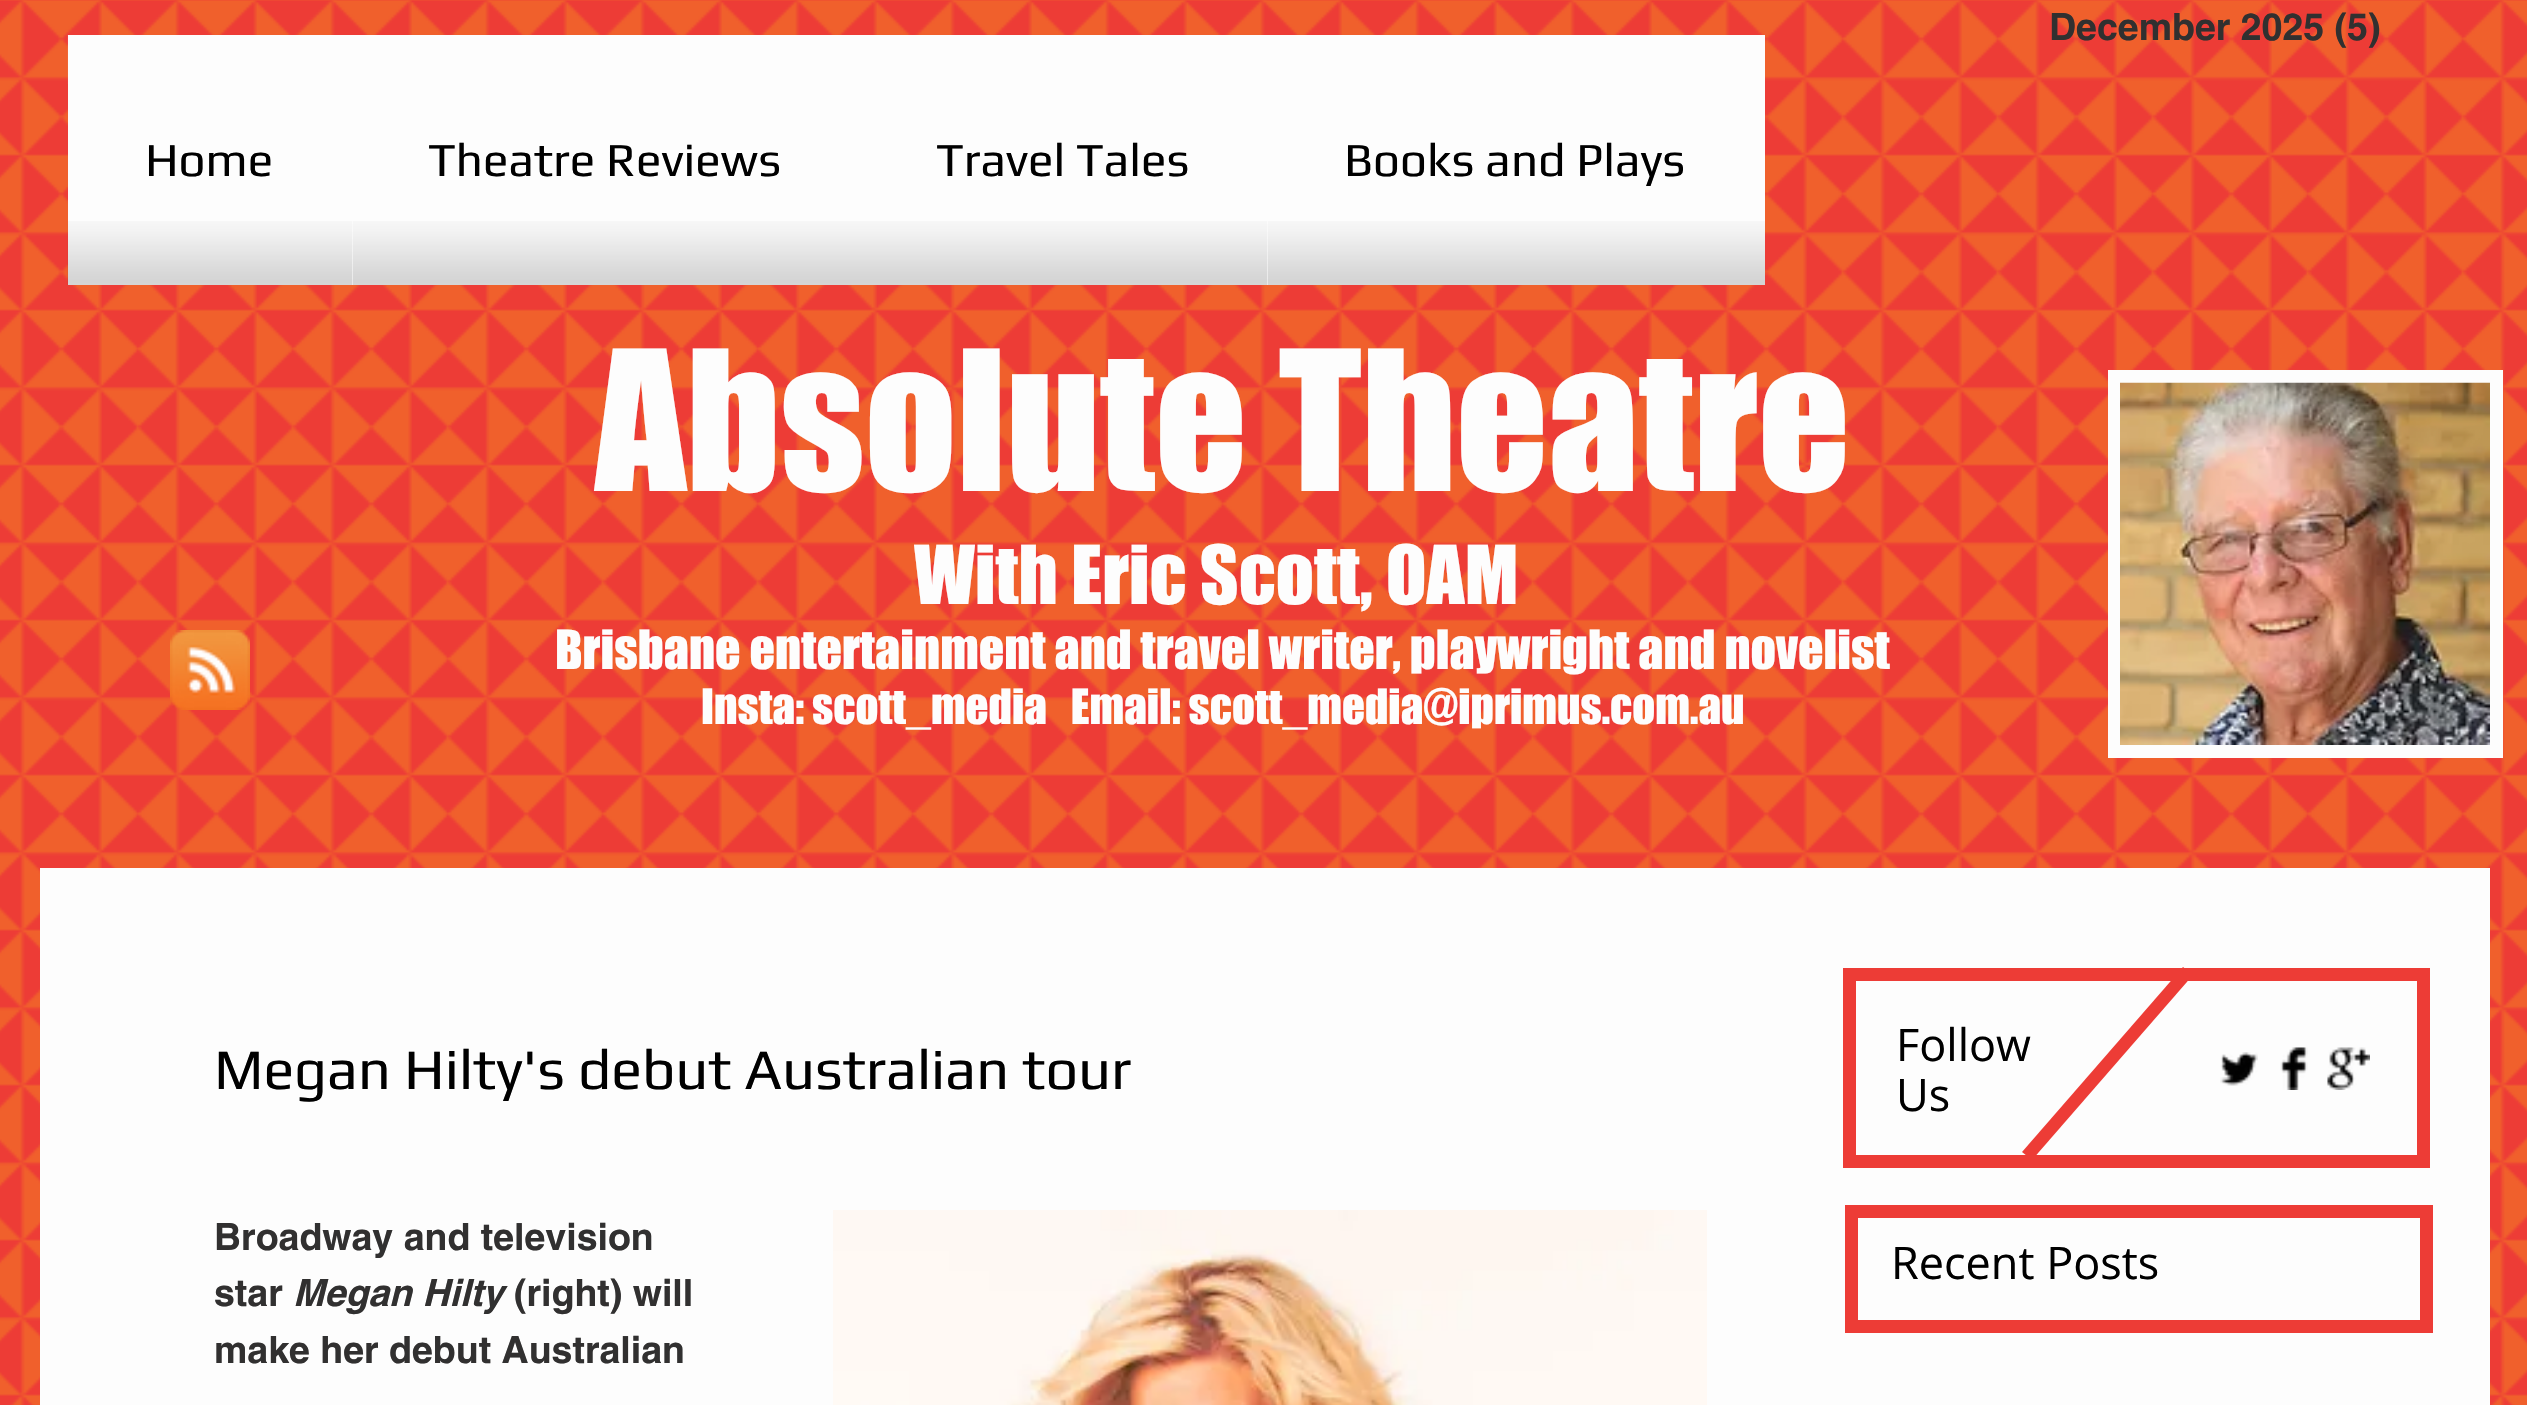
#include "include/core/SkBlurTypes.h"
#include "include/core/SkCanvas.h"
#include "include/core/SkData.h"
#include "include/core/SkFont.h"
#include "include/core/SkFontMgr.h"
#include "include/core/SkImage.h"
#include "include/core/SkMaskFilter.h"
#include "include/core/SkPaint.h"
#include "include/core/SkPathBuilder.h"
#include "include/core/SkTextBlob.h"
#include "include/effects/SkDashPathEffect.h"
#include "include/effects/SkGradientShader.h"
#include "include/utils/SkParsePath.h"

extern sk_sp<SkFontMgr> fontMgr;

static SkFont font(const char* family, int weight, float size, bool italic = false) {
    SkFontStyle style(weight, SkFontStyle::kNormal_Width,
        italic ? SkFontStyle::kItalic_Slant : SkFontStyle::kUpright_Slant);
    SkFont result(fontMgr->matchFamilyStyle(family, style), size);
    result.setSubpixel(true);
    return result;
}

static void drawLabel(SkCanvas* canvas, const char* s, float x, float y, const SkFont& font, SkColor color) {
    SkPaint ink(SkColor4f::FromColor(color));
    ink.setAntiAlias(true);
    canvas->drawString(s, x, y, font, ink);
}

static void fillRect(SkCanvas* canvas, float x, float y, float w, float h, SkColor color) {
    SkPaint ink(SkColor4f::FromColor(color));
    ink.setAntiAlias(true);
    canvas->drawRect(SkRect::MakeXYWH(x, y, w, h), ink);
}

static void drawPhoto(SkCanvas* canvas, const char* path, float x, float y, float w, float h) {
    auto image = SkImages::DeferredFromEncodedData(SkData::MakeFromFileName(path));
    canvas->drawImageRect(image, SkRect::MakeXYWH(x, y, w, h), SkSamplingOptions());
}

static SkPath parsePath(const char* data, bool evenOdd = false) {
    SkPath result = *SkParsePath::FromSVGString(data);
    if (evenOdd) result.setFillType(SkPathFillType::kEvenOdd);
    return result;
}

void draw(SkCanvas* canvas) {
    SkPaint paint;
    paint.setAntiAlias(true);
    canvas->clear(0xFFED3C36);
    drawPhoto(canvas, "assets/img1.png", 0, 0, 2527, 1405);
    SkFont font1 = font("helvetica", 700, 37.5f);
    drawLabel(canvas, "December 2025 (5)", 2049, 40, font1, 0xFF313030);
    fillRect(canvas, 68, 35, 1697, 250, 0xFFFDFDFD);
    drawPhoto(canvas, "assets/img2.png", 67, 35, 1, 49);
    drawPhoto(canvas, "assets/img3.png", 67, 221, 286, 64);
    SkFont font2 = font("Play", 400, 47.5f);
    drawLabel(canvas, "Home", 145, 176, font2, 0xFF000000);
    drawLabel(canvas, "Theatre Reviews", 428, 176, font2, 0xFF000000);
    drawPhoto(canvas, "assets/img4.png", 352, 221, 508, 64);
    drawLabel(canvas, "Travel Tales", 936, 176, font2, 0xFF000000);
    drawPhoto(canvas, "assets/img5.png", 860, 221, 408, 64);
    drawLabel(canvas, "Books and Plays", 1344, 176, font2, 0xFF000000);
    drawPhoto(canvas, "assets/img6.png", 1267, 221, 498, 64);
    drawPhoto(canvas, "assets/img7.png", 170, 630, 80, 80);
    SkFont font3 = font("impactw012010", 400, 180);
    drawLabel(canvas, "Absolute Theatre", 595, 491, font3, 0xFFFDFDFD);
    SkFont font4 = font("impactw012010", 400, 75);
    drawLabel(canvas, "With Eric Scott, OAM", 914, 604, font4, 0xFFFDFDFD);
    SkFont font5 = font("impactw012010", 400, 50);
    drawLabel(canvas, "Brisbane entertainment and travel writer, playwright and novelist", 555, 669, font5, 0xFFFDFDFD);
    SkFont font6 = font("impactw012010", 400, 45);
    drawLabel(canvas, "Insta: scott_media   Email: scott_media@iprimus.com.au", 701, 724, font6, 0xFFFDFDFD);
    fillRect(canvas, 2108, 370, 395, 388, 0xFFFDFDFD);
    drawPhoto(canvas, "assets/img8.png", 2120, 382, 370, 363);
    fillRect(canvas, 40, 868, 2450, 537, 0xFFFDFDFD);
    SkFont font7 = font("Play", 400, 57.5f);
    drawLabel(canvas, "Megan Hilty's debut Australian tour", 214, 1089, font7, 0xFF000000);
    drawLabel(canvas, "Broadway and television", 214, 1250, font1, 0xFF313030);
    drawLabel(canvas, "star", 214, 1306, font1, 0xFF313030);
    SkFont font8 = font("helvetica", 700, 37.5f, true);
    drawLabel(canvas, "Megan Hilty", 293, 1306, font8, 0xFF313030);
    drawLabel(canvas, "(right) will", 514, 1306, font1, 0xFF313030);
    drawLabel(canvas, "make her debut Australian", 214, 1363, font1, 0xFF313030);
    drawPhoto(canvas, "assets/img9.png", 833, 1210, 874, 195);
    paint.setStroke(true);
    paint.setStrokeWidth(13);
    paint.setColor(0xFFED3C36);
    canvas->drawRect(SkRect::MakeXYWH(1849.5f, 974.5f, 574, 187), paint);
    SkFont font9 = font("Open Sans", 400, 45);
    drawLabel(canvas, "Follow", 1896, 1061, font9, 0xFF000000);
    drawLabel(canvas, "Us", 1896, 1111, font9, 0xFF000000);
    paint.setStroke(false);
    canvas->drawPath(parsePath("M2183 967L2193 975L2032 1160L2022 1152Z"), paint);
    drawPhoto(canvas, "assets/img10.png", 2220, 1052, 38, 34);
    drawPhoto(canvas, "assets/img11.png", 2280, 1047, 28, 43);
    drawPhoto(canvas, "assets/img12.png", 2327, 1047, 43, 43);
    paint.setStroke(true);
    canvas->drawRect(SkRect::MakeXYWH(1851.5f, 1211.5f, 575, 115), paint);
    drawLabel(canvas, "Recent Posts", 1891, 1279, font9, 0xFF000000);
}
